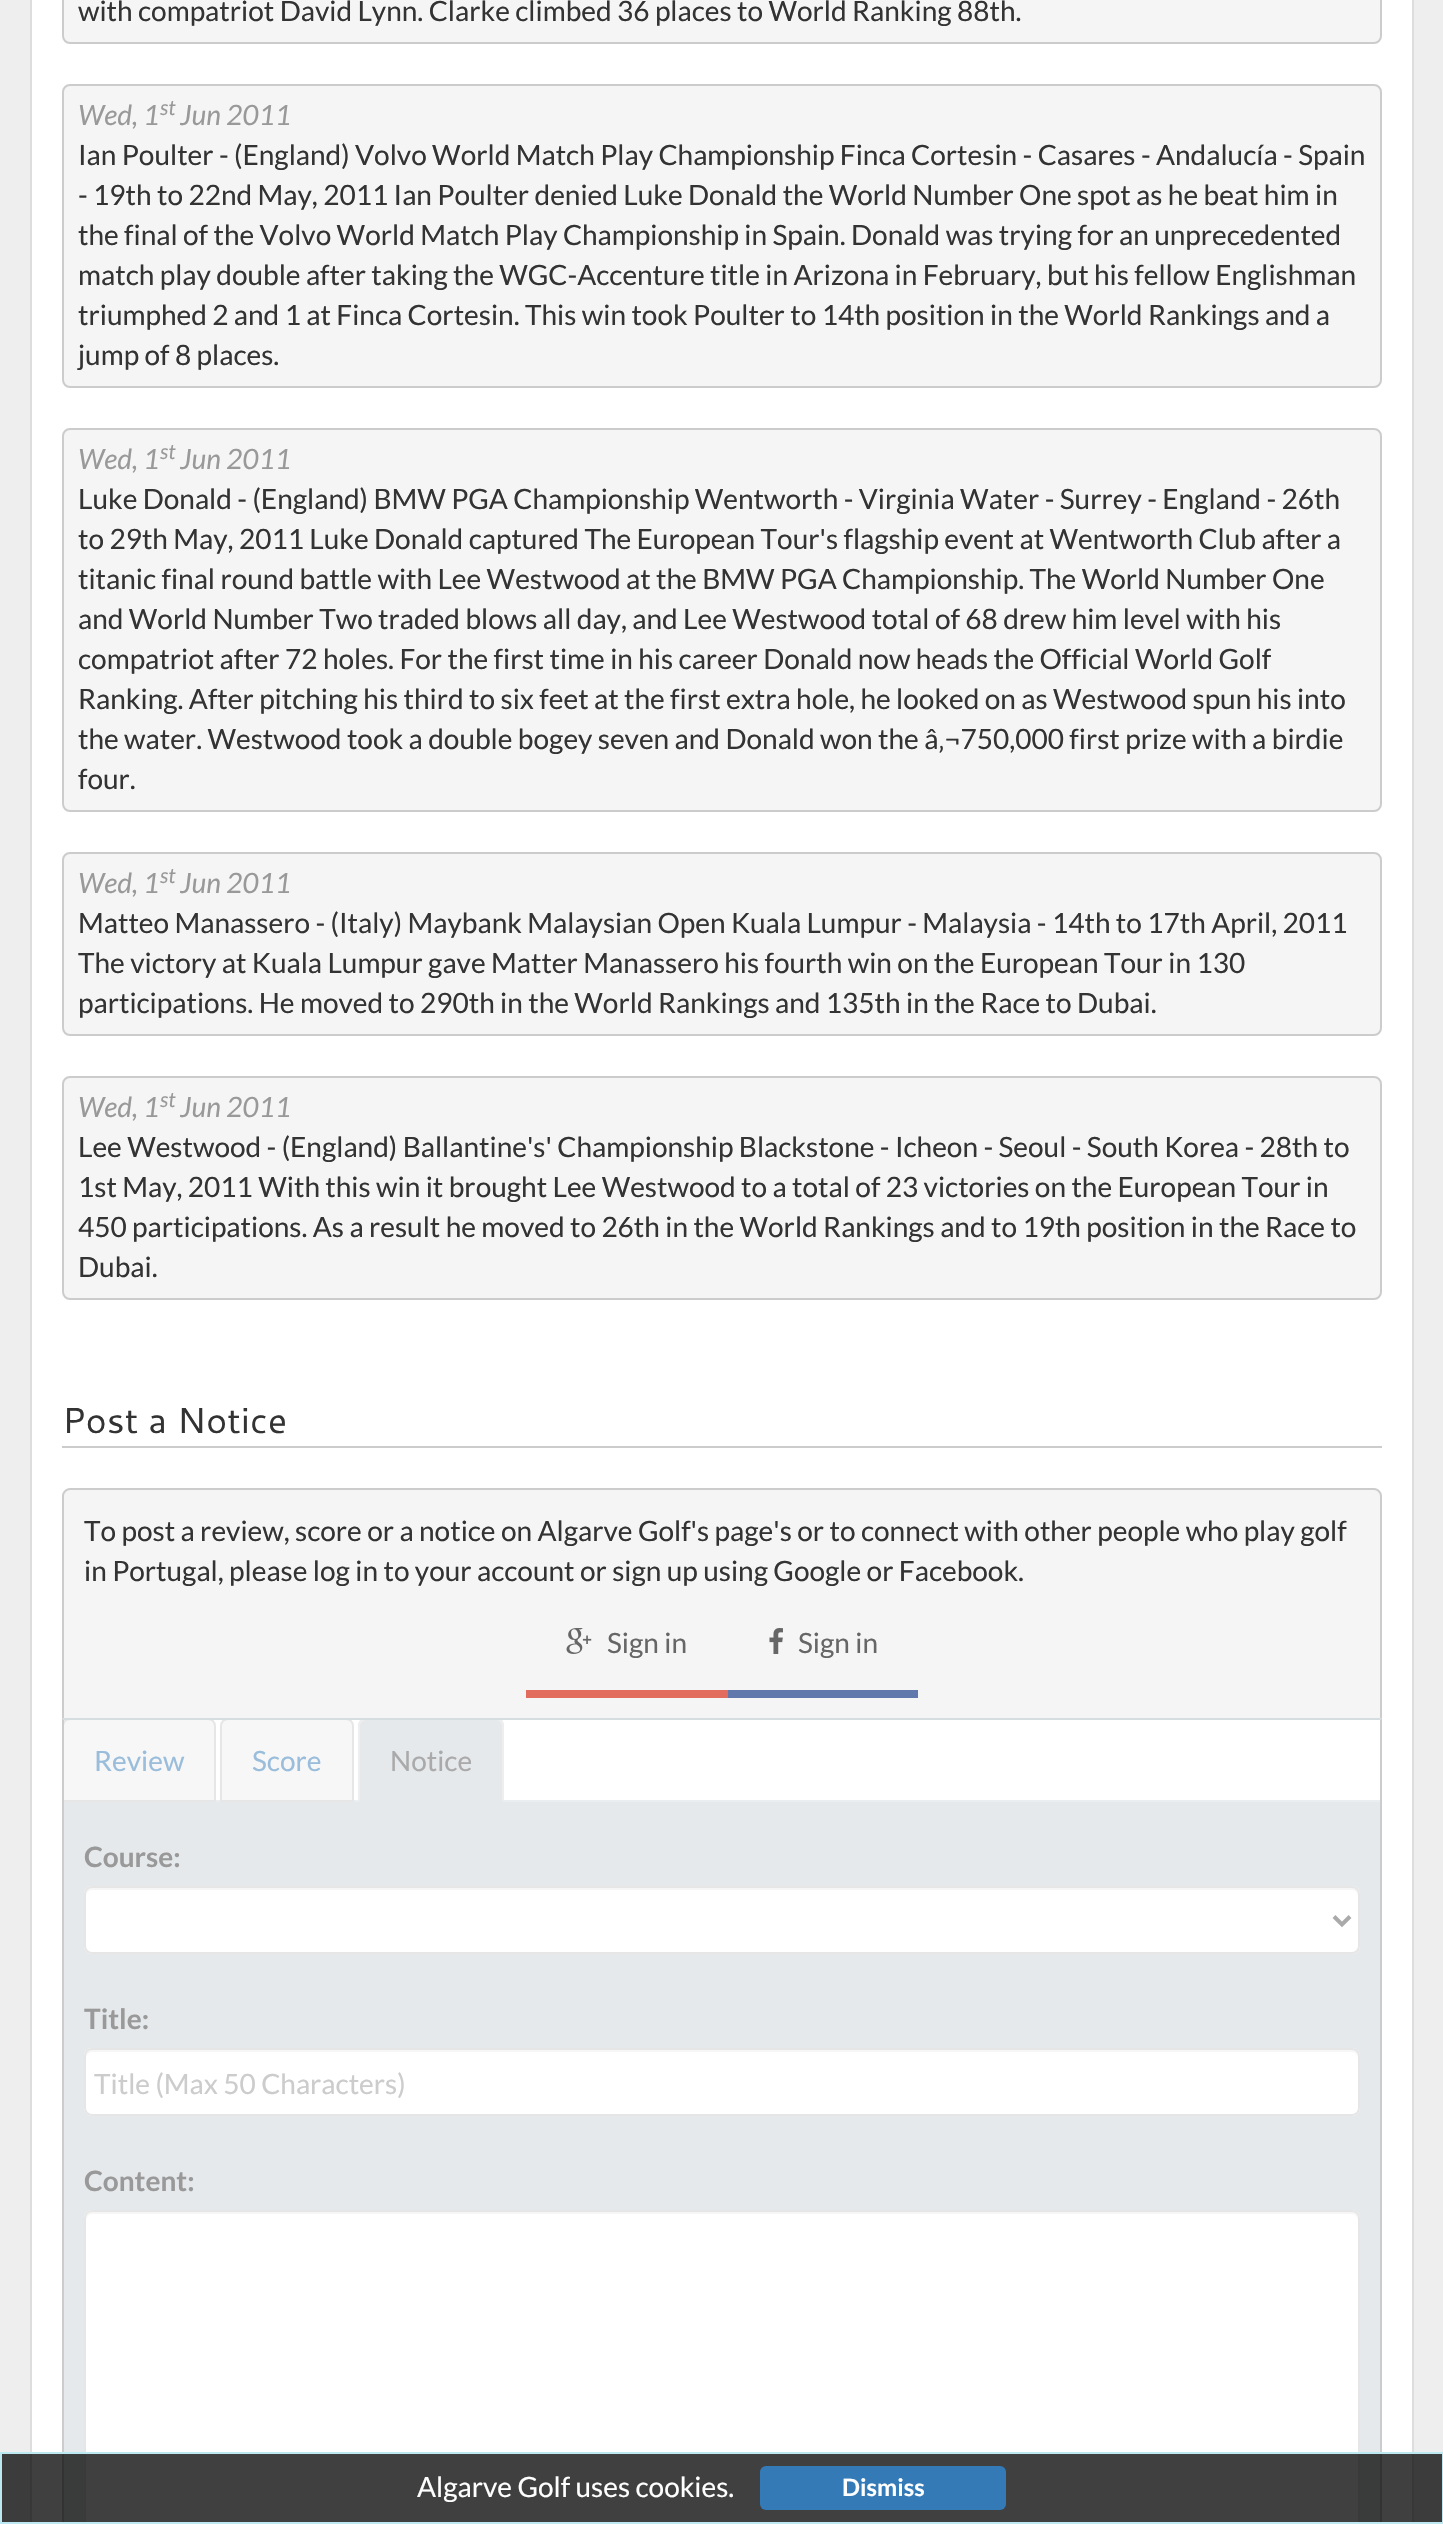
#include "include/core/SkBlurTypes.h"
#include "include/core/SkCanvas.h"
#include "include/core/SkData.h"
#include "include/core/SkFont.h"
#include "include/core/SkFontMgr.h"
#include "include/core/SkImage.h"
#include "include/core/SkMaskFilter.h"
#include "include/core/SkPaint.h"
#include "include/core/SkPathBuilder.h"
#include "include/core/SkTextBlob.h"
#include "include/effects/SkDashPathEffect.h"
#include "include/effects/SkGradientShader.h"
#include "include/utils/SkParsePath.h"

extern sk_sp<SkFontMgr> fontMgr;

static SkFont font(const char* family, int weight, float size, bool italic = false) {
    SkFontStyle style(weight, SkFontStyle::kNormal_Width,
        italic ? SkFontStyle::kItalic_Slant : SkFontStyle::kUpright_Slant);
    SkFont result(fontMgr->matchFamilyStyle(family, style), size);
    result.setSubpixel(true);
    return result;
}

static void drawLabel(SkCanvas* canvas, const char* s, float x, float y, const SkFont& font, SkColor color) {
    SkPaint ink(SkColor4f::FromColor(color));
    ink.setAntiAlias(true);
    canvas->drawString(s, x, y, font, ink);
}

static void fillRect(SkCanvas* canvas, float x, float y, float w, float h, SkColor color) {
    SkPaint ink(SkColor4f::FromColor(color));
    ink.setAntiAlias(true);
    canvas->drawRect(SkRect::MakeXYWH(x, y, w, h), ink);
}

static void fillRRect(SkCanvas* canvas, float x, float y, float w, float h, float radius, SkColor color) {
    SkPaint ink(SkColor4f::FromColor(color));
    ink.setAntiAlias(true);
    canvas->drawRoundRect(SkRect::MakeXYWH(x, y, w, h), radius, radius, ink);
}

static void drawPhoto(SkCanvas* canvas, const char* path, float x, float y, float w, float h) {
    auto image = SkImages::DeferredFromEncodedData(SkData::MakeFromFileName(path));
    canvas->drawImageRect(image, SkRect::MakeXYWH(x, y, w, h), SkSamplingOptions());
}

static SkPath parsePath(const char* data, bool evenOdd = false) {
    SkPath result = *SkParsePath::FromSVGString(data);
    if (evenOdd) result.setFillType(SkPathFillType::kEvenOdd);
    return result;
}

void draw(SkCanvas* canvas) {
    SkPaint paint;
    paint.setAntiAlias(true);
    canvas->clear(0xFFEEEEEE);
    fillRect(canvas, 32, 0, 1380, 2522, 0xFFFFFFFF);
    fillRect(canvas, 1412, 0, 2, 2524, 0xFFDDDDDD);
    fillRect(canvas, 30, 0, 2, 2524, 0xFFDDDDDD);
    paint.setColor(0xFFF5F5F5);
    canvas->drawRoundRect(SkRect::MakeXYWH(63, -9, 1318, 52), 7, 7, paint);
    paint.setStroke(true);
    paint.setStrokeWidth(2);
    paint.setColor(0xFFCCCCCC);
    canvas->drawRoundRect(SkRect::MakeXYWH(63, -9, 1318, 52), 7, 7, paint);
    SkFont font1 = font("Lato", 400, 28);
    drawLabel(canvas, "with compatriot David Lynn. Clarke climbed 36 places to World Ranking 88th.", 78, 21, font1, 0xFF333333);
    paint.setStroke(false);
    paint.setColor(0xFFF5F5F5);
    canvas->drawRoundRect(SkRect::MakeXYWH(63, 85, 1318, 302), 7, 7, paint);
    paint.setStroke(true);
    paint.setColor(0xFFCCCCCC);
    canvas->drawRoundRect(SkRect::MakeXYWH(63, 85, 1318, 302), 7, 7, paint);
    SkFont font2 = font("Lato", 400, 28, true);
    drawLabel(canvas, "Wed, 1", 78, 125, font2, 0xFF999999);
    SkFont font3 = font("Lato", 400, 21, true);
    drawLabel(canvas, "st", 160, 115, font3, 0xFF999999);
    drawLabel(canvas, "Jun 2011", 180, 125, font2, 0xFF999999);
    drawLabel(canvas, "Ian Poulter - (England) Volvo World Match Play Championship Finca Cortesin - Casares - Andalucía - Spain", 78, 165, font1, 0xFF333333);
    drawLabel(canvas, "- 19th to 22nd May, 2011 Ian Poulter denied Luke Donald the World Number One spot as he beat him in", 78, 205, font1, 0xFF333333);
    drawLabel(canvas, "the final of the Volvo World Match Play Championship in Spain. Donald was trying for an unprecedented", 78, 245, font1, 0xFF333333);
    drawLabel(canvas, "match play double after taking the WGC-Accenture title in Arizona in February, but his fellow Englishman", 78, 285, font1, 0xFF333333);
    drawLabel(canvas, "triumphed 2 and 1 at Finca Cortesin. This win took Poulter to 14th position in the World Rankings and a", 78, 325, font1, 0xFF333333);
    drawLabel(canvas, "jump of 8 places.", 78, 365, font1, 0xFF333333);
    paint.setStroke(false);
    paint.setColor(0xFFF5F5F5);
    canvas->drawRoundRect(SkRect::MakeXYWH(63, 429, 1318, 382), 7, 7, paint);
    paint.setStroke(true);
    paint.setColor(0xFFCCCCCC);
    canvas->drawRoundRect(SkRect::MakeXYWH(63, 429, 1318, 382), 7, 7, paint);
    drawLabel(canvas, "Wed, 1", 78, 469, font2, 0xFF999999);
    drawLabel(canvas, "st", 160, 459, font3, 0xFF999999);
    drawLabel(canvas, "Jun 2011", 180, 469, font2, 0xFF999999);
    drawLabel(canvas, "Luke Donald - (England) BMW PGA Championship Wentworth - Virginia Water - Surrey - England - 26th", 78, 509, font1, 0xFF333333);
    drawLabel(canvas, "to 29th May, 2011 Luke Donald captured The European Tour's flagship event at Wentworth Club after a", 78, 549, font1, 0xFF333333);
    drawLabel(canvas, "titanic final round battle with Lee Westwood at the BMW PGA Championship. The World Number One", 78, 589, font1, 0xFF333333);
    drawLabel(canvas, "and World Number Two traded blows all day, and Lee Westwood total of 68 drew him level with his", 78, 629, font1, 0xFF333333);
    drawLabel(canvas, "compatriot after 72 holes. For the first time in his career Donald now heads the Official World Golf", 78, 669, font1, 0xFF333333);
    drawLabel(canvas, "Ranking. After pitching his third to six feet at the first extra hole, he looked on as Westwood spun his into", 78, 709, font1, 0xFF333333);
    drawLabel(canvas, "the water. Westwood took a double bogey seven and Donald won the â‚¬750,000 first prize with a birdie", 78, 749, font1, 0xFF333333);
    drawLabel(canvas, "four.", 78, 789, font1, 0xFF333333);
    paint.setStroke(false);
    paint.setColor(0xFFF5F5F5);
    canvas->drawRoundRect(SkRect::MakeXYWH(63, 853, 1318, 182), 7, 7, paint);
    paint.setStroke(true);
    paint.setColor(0xFFCCCCCC);
    canvas->drawRoundRect(SkRect::MakeXYWH(63, 853, 1318, 182), 7, 7, paint);
    drawLabel(canvas, "Wed, 1", 78, 893, font2, 0xFF999999);
    drawLabel(canvas, "st", 160, 883, font3, 0xFF999999);
    drawLabel(canvas, "Jun 2011", 180, 893, font2, 0xFF999999);
    drawLabel(canvas, "Matteo Manassero - (Italy) Maybank Malaysian Open Kuala Lumpur - Malaysia - 14th to 17th April, 2011", 78, 933, font1, 0xFF333333);
    drawLabel(canvas, "The victory at Kuala Lumpur gave Matter Manassero his fourth win on the European Tour in 130", 78, 973, font1, 0xFF333333);
    drawLabel(canvas, "participations. He moved to 290th in the World Rankings and 135th in the Race to Dubai.", 78, 1013, font1, 0xFF333333);
    paint.setStroke(false);
    paint.setColor(0xFFF5F5F5);
    canvas->drawRoundRect(SkRect::MakeXYWH(63, 1077, 1318, 222), 7, 7, paint);
    paint.setStroke(true);
    paint.setColor(0xFFCCCCCC);
    canvas->drawRoundRect(SkRect::MakeXYWH(63, 1077, 1318, 222), 7, 7, paint);
    drawLabel(canvas, "Wed, 1", 78, 1117, font2, 0xFF999999);
    drawLabel(canvas, "st", 160, 1107, font3, 0xFF999999);
    drawLabel(canvas, "Jun 2011", 180, 1117, font2, 0xFF999999);
    drawLabel(canvas, "Lee Westwood - (England) Ballantine's' Championship Blackstone - Icheon - Seoul - South Korea - 28th to", 78, 1157, font1, 0xFF333333);
    drawLabel(canvas, "1st May, 2011 With this win it brought Lee Westwood to a total of 23 victories on the European Tour in", 78, 1197, font1, 0xFF333333);
    drawLabel(canvas, "450 participations. As a result he moved to 26th in the World Rankings and to 19th position in the Race to", 78, 1237, font1, 0xFF333333);
    drawLabel(canvas, "Dubai.", 78, 1277, font1, 0xFF333333);
    fillRect(canvas, 62, 1446, 1320, 2, 0xFFCCCCCC);
    SkFont font4 = font("Cantarell", 400, 36);
    drawLabel(canvas, "Post a Notice", 62, 1433, font4, 0xFF333333);
    paint.setStroke(false);
    paint.setColor(0xFFF5F5F5);
    canvas->drawPath(parsePath("M70 1488H1374C1378.5 1488 1382 1491.5 1382 1496V1718H62V1496C62 1491.5 65.5 1488 70 1488Z"), paint);
    paint.setColor(0xFFCCCCCC);
    canvas->drawPath(parsePath("M70 1488H1374C1378 1488 1382 1492 1382 1496V1718H62V1496C62 1492 66 1488 70 1488ZM70 1490H1374C1377 1490 1380 1493 1380 1496V1718H64V1496C64 1493 67 1490 70 1490Z", true), paint);
    drawLabel(canvas, "To post a review, score or a notice on Algarve Golf's page's or to connect with other people who play golf", 84, 1541, font1, 0xFF333333);
    drawLabel(canvas, "in Portugal, please log in to your account or sign up using Google or Facebook.", 84, 1581, font1, 0xFF333333);
    fillRect(canvas, 526, 1690, 202, 8, 0xFFE26D5F);
    drawPhoto(canvas, "assets/img1.png", 566, 1628, 26, 26);
    drawLabel(canvas, "Sign in", 607, 1653, font1, 0xFF666666);
    fillRect(canvas, 728, 1690, 190, 8, 0xFF6078AB);
    drawPhoto(canvas, "assets/img2.png", 769, 1628, 14, 26);
    drawLabel(canvas, "Sign in", 798, 1653, font1, 0xFF666666);
    paint.setColor(0xFFEBEEF0);
    canvas->drawPath(parsePath("M62 1800L64 1802H1380L1382 1800Z"), paint);
    paint.setColor(0xFFF7F7F7);
    canvas->drawPath(parsePath("M70 1719H208C212 1719 215 1722 215 1726V1801H63V1726C63 1722 66 1719 70 1719Z"), paint);
    paint.setStroke(true);
    paint.setColor(0xFFE6E6E6);
    canvas->drawPath(parsePath("M70 1719H208C212 1719 215 1722 215 1726V1801H63V1726C63 1722 66 1719 70 1719Z"), paint);
    drawLabel(canvas, "Review", 94, 1771, font1, 0xFF99BDDB);
    paint.setStroke(false);
    paint.setColor(0xFFF7F7F7);
    canvas->drawPath(parsePath("M228 1719H346C350 1719 353 1722 353 1726V1801H221V1726C221 1722 224 1719 228 1719Z"), paint);
    paint.setStroke(true);
    paint.setColor(0xFFE6E6E6);
    canvas->drawPath(parsePath("M228 1719H346C350 1719 353 1722 353 1726V1801H221V1726C221 1722 224 1719 228 1719Z"), paint);
    drawLabel(canvas, "Score", 252, 1771, font1, 0xFF99BDDB);
    paint.setStroke(false);
    paint.setColor(0xFFE5E9EB);
    canvas->drawPath(parsePath("M366 1718H496C500.5 1718 504 1721.5 504 1726V1802H358V1726C358 1721.5 361.5 1718 366 1718Z"), paint);
    paint.setColor(0xFFEEEEEE);
    canvas->drawPath(parsePath("M366 1718C364 1718 362 1719 360 1720L362 1722L365 1720H497L500 1722L502 1720C500 1719 498 1718 496 1718Z"), paint);
    canvas->drawPath(parsePath("M504 1802V1726C504 1724 503 1722 502 1720L500 1722L502 1725V1800Z"), paint);
    canvas->drawPath(parsePath("M358 1802L360 1800V1725L362 1722L360 1720C359 1722 358 1724 358 1726Z"), paint);
    drawLabel(canvas, "Notice", 390, 1771, font1, 0xFFAAAAAA);
    fillRect(canvas, 64, 1802, 1316, 720, 0xFFE5E9EB);
    paint.setColor(0xFFD6DDE0);
    canvas->drawPath(parsePath("M62 1718L64 1720H1380L1382 1718Z"), paint);
    paint.setColor(0xFFCCCCCC);
    canvas->drawPath(parsePath("M1382 1718L1380 1720V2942C1380 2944 1379 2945 1378 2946L1380 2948C1381 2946 1382 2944 1382 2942Z"), paint);
    canvas->drawPath(parsePath("M64 1720L62 1718V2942C62 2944 63 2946 64 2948L66 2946C65 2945 64 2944 64 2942Z"), paint);
    SkFont font5 = font("Lato", 700, 28);
    drawLabel(canvas, "Course:", 84, 1867, font5, 0xFF999999);
    fillRRect(canvas, 84, 1886, 1276, 68, 8, 0xFFFFFFFF);
    paint.setColor(0xFFF6F6F6);
    canvas->drawPath(parsePath("M92 1890H1352C1355 1890 1358 1893 1358 1896V1894C1358 1891 1355 1888 1352 1888H92C89 1888 86 1891 86 1894V1896C86 1893 89 1890 92 1890Z"), paint);
    paint.setStroke(true);
    paint.setColor(0xFFE6E6E6);
    canvas->drawRoundRect(SkRect::MakeXYWH(85, 1887, 1274, 66), 7, 7, paint);
    paint.setStrokeWidth(4);
    paint.setColor(0xFFAAAAAA);
    canvas->drawPath(parsePath("M1334 1916.5L1342 1924.5L1350 1916.5"), paint);
    drawLabel(canvas, "Title:", 84, 2029, font5, 0xFF999999);
    fillRRect(canvas, 84, 2048, 1276, 68, 8, 0xFFFFFFFF);
    paint.setStroke(false);
    paint.setColor(0xFFF6F6F6);
    canvas->drawPath(parsePath("M92 2052H1352C1355 2052 1358 2055 1358 2058V2056C1358 2053 1355 2050 1352 2050H92C89 2050 86 2053 86 2056V2058C86 2055 89 2052 92 2052Z"), paint);
    paint.setStroke(true);
    paint.setStrokeWidth(2);
    paint.setColor(0xFFE6E6E6);
    canvas->drawRoundRect(SkRect::MakeXYWH(85, 2049, 1274, 66), 7, 7, paint);
    drawLabel(canvas, "Title (Max 50 Characters)", 94, 2094, font1, 0xFFCCCCCC);
    drawLabel(canvas, "Content:", 84, 2191, font5, 0xFF999999);
    fillRRect(canvas, 84, 2210, 1276, 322, 8, 0xFFFFFFFF);
    paint.setStroke(false);
    paint.setColor(0xFFF6F6F6);
    canvas->drawPath(parsePath("M92 2214H1352C1355 2214 1358 2217 1358 2220V2218C1358 2215 1355 2212 1352 2212H92C89 2212 86 2215 86 2218V2220C86 2217 89 2214 92 2214Z"), paint);
    paint.setStroke(true);
    paint.setColor(0xFFE6E6E6);
    canvas->drawRoundRect(SkRect::MakeXYWH(85, 2211, 1274, 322), 7, 7, paint);
    paint.setStroke(false);
    paint.setColor(0xBF000000);
    canvas->drawRect(SkRect::MakeXYWH(1, 2453, 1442, 70), paint);
    paint.setStroke(true);
    paint.setColor(0xFFBCE8F1);
    canvas->drawRect(SkRect::MakeXYWH(1, 2453, 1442, 70), paint);
    drawLabel(canvas, "Algarve Golf uses cookies.", 417, 2497, font1, 0xFFFFFFFF);
    fillRRect(canvas, 760, 2466, 246, 44, 6, 0xFF337AB7);
    SkFont font6 = font("Lato", 700, 24);
    drawLabel(canvas, "Dismiss", 842, 2496, font6, 0xFFFFFFFF);
}
